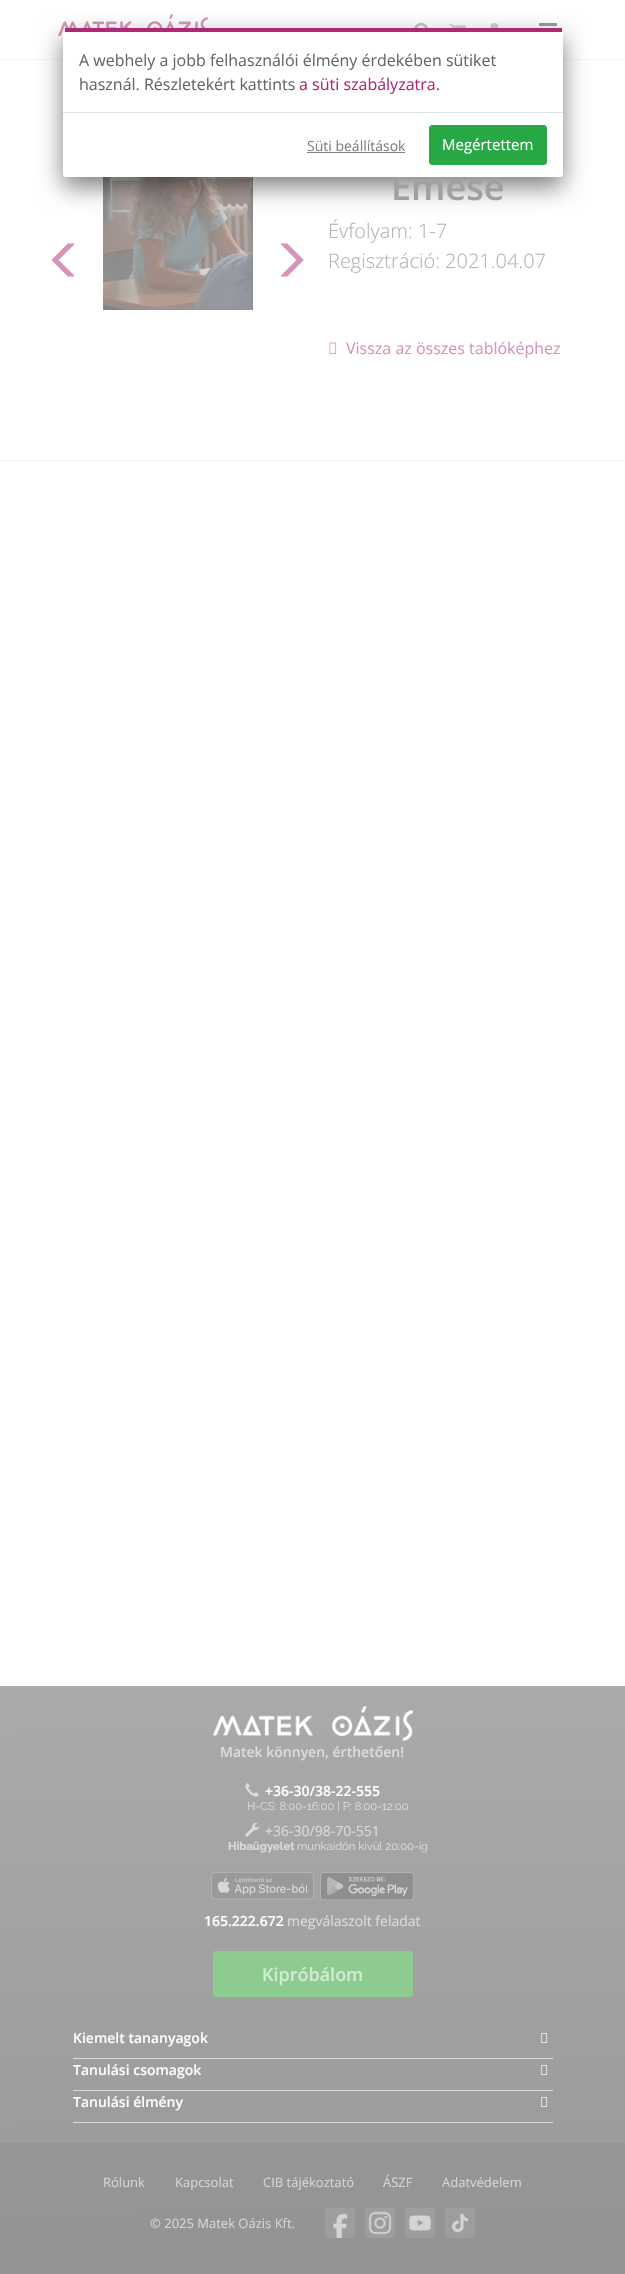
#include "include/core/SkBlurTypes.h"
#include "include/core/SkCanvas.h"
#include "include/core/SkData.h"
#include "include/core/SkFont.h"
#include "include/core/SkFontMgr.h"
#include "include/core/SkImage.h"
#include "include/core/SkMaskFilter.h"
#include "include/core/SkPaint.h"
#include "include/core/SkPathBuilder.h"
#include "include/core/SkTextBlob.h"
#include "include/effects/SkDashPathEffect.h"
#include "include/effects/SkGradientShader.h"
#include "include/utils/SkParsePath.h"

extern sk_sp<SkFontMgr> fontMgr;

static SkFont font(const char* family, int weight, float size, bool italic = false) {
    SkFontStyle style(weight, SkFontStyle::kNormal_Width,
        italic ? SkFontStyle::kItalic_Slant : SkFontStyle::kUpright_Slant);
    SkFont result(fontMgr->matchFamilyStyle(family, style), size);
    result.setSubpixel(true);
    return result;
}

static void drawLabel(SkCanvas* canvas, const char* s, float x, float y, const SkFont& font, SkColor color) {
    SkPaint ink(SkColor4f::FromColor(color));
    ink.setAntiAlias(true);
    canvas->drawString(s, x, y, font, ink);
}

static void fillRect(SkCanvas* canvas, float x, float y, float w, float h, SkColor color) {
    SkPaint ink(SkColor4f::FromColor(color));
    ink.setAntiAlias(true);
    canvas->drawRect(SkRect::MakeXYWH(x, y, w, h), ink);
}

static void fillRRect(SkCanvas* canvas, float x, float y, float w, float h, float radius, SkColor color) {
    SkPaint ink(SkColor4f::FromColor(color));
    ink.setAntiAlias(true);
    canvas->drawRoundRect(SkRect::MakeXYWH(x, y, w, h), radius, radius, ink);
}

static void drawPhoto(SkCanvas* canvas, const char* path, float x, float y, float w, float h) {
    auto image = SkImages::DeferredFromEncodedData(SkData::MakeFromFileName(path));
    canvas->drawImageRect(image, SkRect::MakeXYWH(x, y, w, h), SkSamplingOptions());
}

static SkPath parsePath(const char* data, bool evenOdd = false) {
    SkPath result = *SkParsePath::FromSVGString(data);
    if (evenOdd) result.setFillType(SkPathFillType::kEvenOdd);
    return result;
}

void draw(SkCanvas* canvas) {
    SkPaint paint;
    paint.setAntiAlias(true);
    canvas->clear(0xFFFFFFFF);
    fillRect(canvas, 0, 59, 625, 1, 0xFFF5F5F5);
    drawPhoto(canvas, "assets/img1.png", 58, 14, 150, 22);
    drawPhoto(canvas, "assets/img2.png", 414, 22, 14, 6);
    drawPhoto(canvas, "assets/img3.png", 449, 24, 17, 4);
    drawPhoto(canvas, "assets/img4.png", 490, 22, 9, 6);
    drawPhoto(canvas, "assets/img5.png", 539, 23, 18, 3);
    drawPhoto(canvas, "assets/img7.png", 103, 177, 150, 133);
    paint.setColor(0x80000000);
    paint.setMaskFilter(SkMaskFilter::MakeBlur(kNormal_SkBlurStyle, 12.5f));
    canvas->drawRoundRect(SkRect::MakeXYWH(63, 38, 500, 149), 3, 3, paint);
    paint.setMaskFilter(nullptr);
    SkFont font1 = font("Open Sans", 600, 36);
    drawLabel(canvas, "Emese", 391, 200, font1, 0xFFA0A0A0);
    paint.setColor(0xFFFFFFFF);
    canvas->drawPath(parsePath("M66 32H563V174C563 176 562 177 560 177H66C64 177 63 176 63 174V32Z"), paint);
    fillRect(canvas, 65, 28, 497, 4, 0xFFAD2876);
    SkFont font2 = font("Open Sans", 400, 16);
    drawLabel(canvas, "A webhely a jobb felhasználói élmény érdekében sütiket", 79, 66, font2, 0xFF666666);
    drawLabel(canvas, "használ. Részletekért kattints", 79, 90, font2, 0xFF666666);
    drawLabel(canvas, "a süti szabályzatra.", 299, 90, font2, 0xFFAD2876);
    fillRect(canvas, 63, 112, 500, 1, 0xFFDEE2E6);
    SkFont font3 = font("Open Sans", 400, 14);
    drawLabel(canvas, "Süti beállítások", 307, 151, font3, 0xFF808080);
    fillRect(canvas, 307, 152, 98, 1, 0xFF808080);
    paint.setColor(0xFF28A745);
    canvas->drawRoundRect(SkRect::MakeXYWH(429.5f, 125.5f, 117, 39), 2.5f, 2.5f, paint);
    paint.setStroke(true);
    paint.setStrokeWidth(1);
    canvas->drawRoundRect(SkRect::MakeXYWH(429.5f, 125.5f, 117, 39), 2.5f, 2.5f, paint);
    SkFont font4 = font("Open Sans", 400, 15);
    drawLabel(canvas, "Megértettem", 442, 150, font4, 0xFFFCFCFD);
    fillRect(canvas, 0, 460, 625, 1, 0xFFF3F3F3);
    drawPhoto(canvas, "assets/img6.png", 51, 243, 24, 34);
    drawPhoto(canvas, "assets/img8.png", 280, 243, 24, 34);
    SkFont font5 = font("Open Sans", 300, 20);
    drawLabel(canvas, "Évfolyam: 1-7", 328, 238, font5, 0xFFB3B3B3);
    drawLabel(canvas, "Regisztráció: 2021.04.07", 328, 268, font5, 0xFFB3B3B3);
    drawPhoto(canvas, "assets/img9.png", 329, 342, 8, 12);
    drawLabel(canvas, "Vissza az összes tablóképhez", 346, 354, font2, 0xFFD694BB);
    paint.setStroke(false);
    {
        const SkColor colors[] = {0xFFAAAAAA, 0xFF989898};
        const float stops[] = {0, 1};
        const SkPoint ends[] = {{312, 1686}, {313, 2274}};
        paint.setShader(SkGradientShader::MakeLinear(ends, colors, stops, 2, SkTileMode::kClamp));
        paint.setAlpha(255);
    }
    canvas->drawRect(SkRect::MakeXYWH(0, 1686, 625, 457), paint);
    {
        const SkColor colors[] = {0xFFA2A2A2, 0xFF939393};
        const float stops[] = {0, 1};
        const SkPoint ends[] = {{312, 1686}, {313, 2274}};
        paint.setShader(SkGradientShader::MakeLinear(ends, colors, stops, 2, SkTileMode::kClamp));
        paint.setAlpha(255);
    }
    canvas->drawRect(SkRect::MakeXYWH(0, 2143, 625, 131), paint);
    drawPhoto(canvas, "assets/img10.png", 213, 1706, 200, 35);
    SkFont font6 = font("Open Sans", 600, 14);
    drawLabel(canvas, "Matek könnyen, érthetően!", 220, 1757, font6, 0xFFDCDCDC);
    drawPhoto(canvas, "assets/img11.png", 245, 1783, 14, 14);
    drawLabel(canvas, "+36-30/38-22-555", 265, 1796, font6, 0xFFFCFCFD);
    SkFont font7 = font("Raleway", 400, 11.25f);
    drawLabel(canvas, "H-CS: 8:00-16:00 | P: 8:00-12:00", 247, 1810, font7, 0xFFDCDCDC);
    drawPhoto(canvas, "assets/img12.png", 245, 1823, 14, 14);
    drawLabel(canvas, "+36-30/98-70-551", 265, 1836, font3, 0xFFDCDCDC);
    SkFont font8 = font("Raleway", 700, 11.25f);
    drawLabel(canvas, "Hibaügyelet", 228, 1850, font8, 0xFFDCDCDC);
    drawLabel(canvas, "munkaidőn kívül 20:00-ig", 297, 1850, font7, 0xFFDCDCDC);
    drawPhoto(canvas, "assets/img13.png", 211, 1872, 103, 28);
    drawPhoto(canvas, "assets/img14.png", 320, 1872, 94, 28);
    drawLabel(canvas, "165.222.672", 204, 1926, font6, 0xFFFCFCFD);
    drawLabel(canvas, "megválaszolt feladat", 287, 1926, font3, 0xFFDCDCDC);
    fillRRect(canvas, 213, 1951, 200, 46, 3, 0xFF8ECB91);
    SkFont font9 = font("Open Sans", 600, 18);
    drawLabel(canvas, "Kipróbálom", 262, 1981, font9, 0xFFD2EAD3);
    fillRect(canvas, 73, 2058, 480, 1, 0xFFD9D9D9);
    drawLabel(canvas, "Kiemelt tananyagok", 73, 2043, font6, 0xFFFCFCFD);
    drawPhoto(canvas, "assets/img15.png", 541, 2033, 7, 10);
    fillRect(canvas, 73, 2090, 480, 1, 0xFFD8D8D8);
    drawLabel(canvas, "Tanulási csomagok", 73, 2075, font6, 0xFFFCFCFD);
    drawPhoto(canvas, "assets/img16.png", 541, 2065, 7, 10);
    fillRect(canvas, 73, 2122, 480, 1, 0xFFD8D8D8);
    drawLabel(canvas, "Tanulási élmény", 73, 2107, font6, 0xFFFCFCFD);
    drawPhoto(canvas, "assets/img17.png", 541, 2097, 7, 10);
    SkFont font10 = font("Open Sans", 400, 13);
    drawLabel(canvas, "Rólunk", 103, 2187, font10, 0xFFD5D5D5);
    drawLabel(canvas, "Kapcsolat", 175, 2187, font10, 0xFFD5D5D5);
    drawLabel(canvas, "CIB tájékoztató", 263, 2187, font10, 0xFFD5D5D5);
    drawLabel(canvas, "ÁSZF", 383, 2187, font10, 0xFFD5D5D5);
    drawLabel(canvas, "Adatvédelem", 442, 2187, font10, 0xFFD5D5D5);
    drawLabel(canvas, "© 2025 Matek Oázis Kft.", 150, 2228, font10, 0xFFD5D5D5);
    drawPhoto(canvas, "assets/img18.png", 325, 2208, 30, 30);
    drawPhoto(canvas, "assets/img19.png", 365, 2208, 30, 30);
    drawPhoto(canvas, "assets/img20.png", 405, 2208, 30, 30);
    drawPhoto(canvas, "assets/img21.png", 445, 2208, 30, 30);
}
